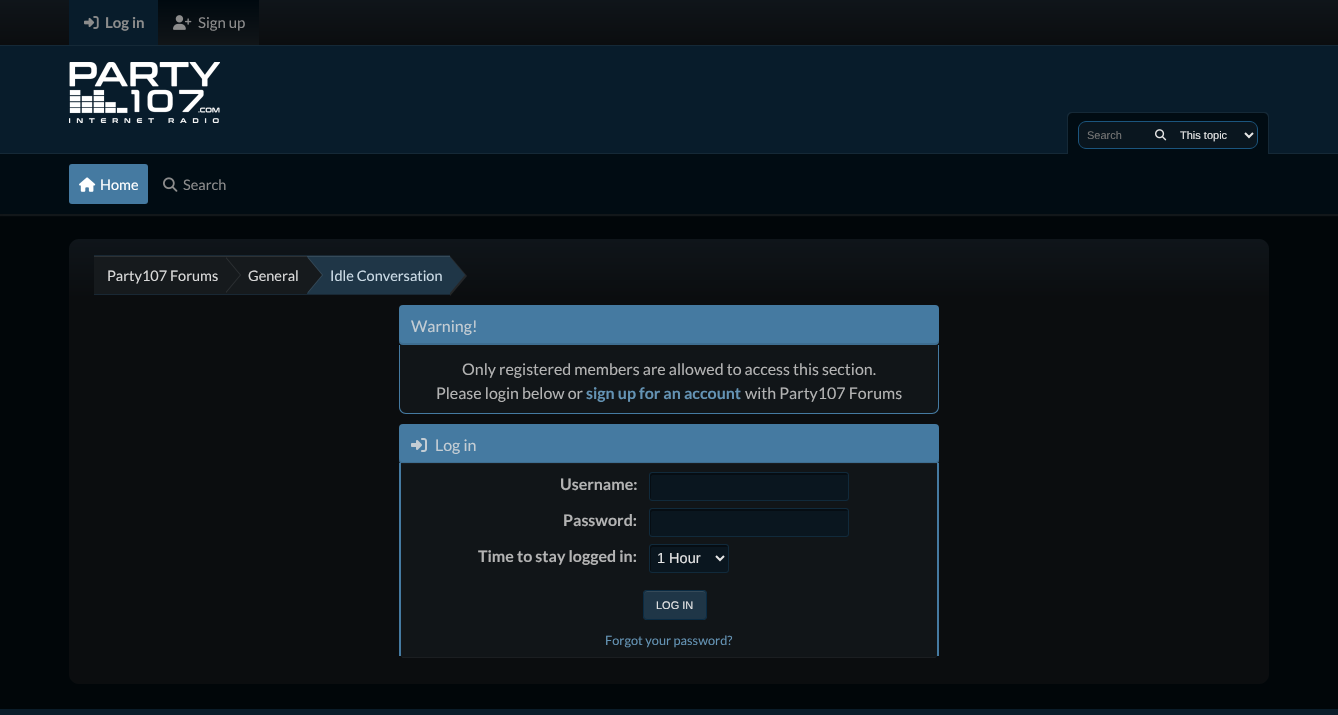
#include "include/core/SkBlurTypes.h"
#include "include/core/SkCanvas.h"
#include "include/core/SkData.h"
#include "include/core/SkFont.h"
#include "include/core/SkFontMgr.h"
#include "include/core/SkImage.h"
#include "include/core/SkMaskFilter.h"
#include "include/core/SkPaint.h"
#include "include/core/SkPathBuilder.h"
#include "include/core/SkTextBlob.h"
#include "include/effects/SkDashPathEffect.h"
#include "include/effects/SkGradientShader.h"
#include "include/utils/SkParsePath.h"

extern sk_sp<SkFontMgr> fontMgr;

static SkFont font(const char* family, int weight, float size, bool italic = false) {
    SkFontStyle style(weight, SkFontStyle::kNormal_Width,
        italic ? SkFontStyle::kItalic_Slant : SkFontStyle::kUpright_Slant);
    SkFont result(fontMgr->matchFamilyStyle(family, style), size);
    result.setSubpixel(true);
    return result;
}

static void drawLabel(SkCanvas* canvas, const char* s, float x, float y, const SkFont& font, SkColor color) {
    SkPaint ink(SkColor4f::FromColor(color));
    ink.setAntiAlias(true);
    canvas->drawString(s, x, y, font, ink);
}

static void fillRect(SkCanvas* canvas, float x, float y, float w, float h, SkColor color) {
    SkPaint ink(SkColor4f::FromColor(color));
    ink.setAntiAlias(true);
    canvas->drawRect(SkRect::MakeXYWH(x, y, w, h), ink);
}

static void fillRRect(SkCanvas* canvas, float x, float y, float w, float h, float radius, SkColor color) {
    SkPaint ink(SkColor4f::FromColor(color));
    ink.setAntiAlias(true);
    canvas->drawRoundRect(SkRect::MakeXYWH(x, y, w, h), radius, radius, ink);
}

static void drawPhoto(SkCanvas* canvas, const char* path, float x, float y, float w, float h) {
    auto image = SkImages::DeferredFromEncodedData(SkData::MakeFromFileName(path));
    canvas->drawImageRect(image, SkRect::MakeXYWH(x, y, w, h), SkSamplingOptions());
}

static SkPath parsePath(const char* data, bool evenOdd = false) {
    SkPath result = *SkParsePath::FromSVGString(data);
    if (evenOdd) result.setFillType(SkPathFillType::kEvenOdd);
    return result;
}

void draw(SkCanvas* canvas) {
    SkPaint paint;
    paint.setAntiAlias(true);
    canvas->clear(0xFF010609);
    {
        const SkColor colors[] = {0xFF0F151A, 0xFF0B0D0F};
        const float stops[] = {0, 1};
        const SkPoint ends[] = {{669, 0}, {669, 45}};
        paint.setShader(SkGradientShader::MakeLinear(ends, colors, stops, 2, SkTileMode::kClamp));
        paint.setAlpha(255);
    }
    canvas->drawRect(SkRect::MakeXYWH(0, 0, 1338, 45), paint);
    fillRect(canvas, 0, 45, 1338, 1, 0xFF152937);
    fillRect(canvas, 69, 0, 89, 45, 0xFF081C2B);
    drawPhoto(canvas, "assets/img1.png", 84, 16, 15, 13);
    SkFont font1 = font("Lato", 700, 15);
    drawLabel(canvas, "Log in", 105, 28, font1, 0xFF8C8C8C);
    {
        const SkColor colors[] = {0xFF00090F, 0xFF111518};
        const float stops[] = {0, 1};
        const SkPoint ends[] = {{209, 0}, {209, 45}};
        paint.setShader(SkGradientShader::MakeLinear(ends, colors, stops, 2, SkTileMode::kClamp));
        paint.setAlpha(255);
    }
    canvas->drawRect(SkRect::MakeXYWH(158, 0, 101, 45), paint);
    drawPhoto(canvas, "assets/img2.png", 173, 15, 19, 15);
    SkFont font2 = font("Lato", 400, 15);
    drawLabel(canvas, "Sign up", 198, 28, font2, 0xFF8C8C8C);
    fillRect(canvas, 0, 46, 1338, 107, 0xFF081C2B);
    fillRect(canvas, 0, 153, 1338, 1, 0xFF152937);
    drawPhoto(canvas, "assets/img3.png", 69, 62, 151, 61);
    paint.setShader(nullptr);
    paint.setColor(0x1AAAAAAA);
    paint.setMaskFilter(SkMaskFilter::MakeBlur(kNormal_SkBlurStyle, 0.5f));
    canvas->drawRect(SkRect::MakeXYWH(0, 156, 1338, 60), paint);
    paint.setMaskFilter(nullptr);
    paint.setColor(0xFF010C13);
    canvas->drawPath(parsePath("M1072 113H1264C1266 113 1268 115 1268 117V154H1068V117C1068 115 1070 113 1072 113Z"), paint);
    paint.setColor(0xFF152937);
    canvas->drawPath(parsePath("M1072 112H1264C1267 112 1269 114 1269 117V154H1067V117C1067 114 1069 112 1072 112ZM1072 113H1264C1266 113 1268 115 1268 117V154H1068V117C1068 115 1070 113 1072 113Z", true), paint);
    paint.setColor(0xFF0A161F);
    canvas->drawPath(parsePath("M1086 122H1145V148H1086C1082 148 1079 145 1079 141V129C1079 125 1082 122 1086 122Z"), paint);
    paint.setColor(0xFF1B557E);
    canvas->drawPath(parsePath("M1086 121H1145V149H1086C1082 149 1078 145 1078 141V129C1078 125 1082 121 1086 121ZM1086 122H1145V148H1086C1082 148 1079 145 1079 141V129C1079 125 1082 122 1086 122Z", true), paint);
    SkFont font3 = font("Liberation Sans", 400, 11);
    drawLabel(canvas, "Search", 1087, 139, font3, 0xFF757575);
    fillRect(canvas, 1145, 122, 31, 26, 0xFF0A161F);
    fillRect(canvas, 1145, 121, 31, 1, 0xFF1B557E);
    fillRect(canvas, 1145, 148, 31, 1, 0xFF1B557E);
    drawPhoto(canvas, "assets/img4.png", 1155, 129, 12, 12);
    paint.setColor(0xFF0A161F);
    canvas->drawPath(parsePath("M1176 122H1250C1254 122 1257 125 1257 129V141C1257 145 1254 148 1250 148H1176Z"), paint);
    paint.setColor(0xFF1B557E);
    canvas->drawPath(parsePath("M1176 121H1250C1254 121 1258 125 1258 129V141C1258 145 1254 149 1250 149H1176ZM1176 122H1250C1254 122 1257 125 1257 129V141C1257 145 1254 148 1250 148H1176Z", true), paint);
    paint.setStroke(true);
    paint.setStrokeWidth(2);
    paint.setColor(0xFFE6E6E6);
    canvas->drawPath(parsePath("M1245 133L1249 137L1253 133"), paint);
    drawLabel(canvas, "This topic", 1180, 139, font3, 0xFFE6E6E6);
    fillRect(canvas, 0, 154, 1338, 60, 0xFF010C13);
    fillRRect(canvas, 69, 164, 79, 40, 3, 0xFF457AA1);
    drawPhoto(canvas, "assets/img5.png", 79, 177, 17, 15);
    SkFont font4 = font("Lato", 400, 14.5f);
    drawLabel(canvas, "Home", 100, 190, font4, 0xFFFFFFFF);
    drawPhoto(canvas, "assets/img6.png", 163, 177, 15, 15);
    drawLabel(canvas, "Search", 183, 190, font4, 0xFF8C8C8C);
    paint.setStroke(false);
    {
        const SkColor colors[] = {0xFF0F151A, 0xFF0B0D0F};
        const float stops[] = {0, 1};
        const SkPoint ends[] = {{669, 239}, {669, 299}};
        paint.setShader(SkGradientShader::MakeLinear(ends, colors, stops, 2, SkTileMode::kClamp));
        paint.setAlpha(255);
    }
    canvas->drawPath(parsePath("M79 239H1259C1264.5 239 1269 243.5 1269 249V299H69V249C69 243.5 73.5 239 79 239Z"), paint);
    fillRect(canvas, 94, 257, 213, 37, 0xFF161A1D);
    fillRect(canvas, 94, 256, 213, 1, 0xFF2D3134);
    fillRect(canvas, 94, 255, 356, 1, 0xFF192834);
    fillRect(canvas, 94, 294, 356, 1, 0xFF192834);
    paint.setShader(nullptr);
    paint.setColor(0xFF2D3134);
    canvas->drawPath(parsePath("M226 293V257L241 275Z"), paint);
    paint.setColor(0xFF161A1D);
    canvas->drawPath(parsePath("M225 293V257L240 275Z"), paint);
    drawLabel(canvas, "Party107 Forums", 107, 281, font4, 0xFFD9D9D9);
    fillRect(canvas, 307, 257, 143, 37, 0xFF1F3647);
    paint.setColor(0xFF354A59);
    canvas->drawPath(parsePath("M308 293V257L323 275Z"), paint);
    paint.setColor(0xFF161A1D);
    canvas->drawPath(parsePath("M307 293V257L322 275Z"), paint);
    drawLabel(canvas, "General", 248, 281, font4, 0xFFD9D9D9);
    fillRect(canvas, 307, 256, 143, 1, 0xFF354A59);
    paint.setColor(0x1AFFFFFF);
    canvas->drawPath(parsePath("M450 296V256L467 276Z"), paint);
    drawLabel(canvas, "Idle Conversation", 330, 281, font4, 0xFFCBDBE6);
    paint.setColor(0xFF1F3647);
    canvas->drawPath(parsePath("M450 293V257L465 275Z"), paint);
    paint.setColor(0xFF0B0D0F);
    canvas->drawPath(parsePath("M69 299H1269V674C1269 679.5 1264.5 684 1259 684H79C73.5 684 69 679.5 69 674Z"), paint);
    fillRRect(canvas, 399, 305, 540, 40, 4, 0xFF457AA1);
    paint.setColor(0x1A000000);
    canvas->drawPath(parsePath("M399 339V341C399 343 401 345 403 345H935C937 345 939 343 939 341V339C939 341 937 343 935 343H403C401 343 399 341 399 339Z"), paint);
    SkFont font5 = font("Lato", 400, 16);
    drawLabel(canvas, "Warning!", 411, 332, font5, 0xFFC4CDD4);
    paint.setColor(0xFF111518);
    canvas->drawPath(parsePath("M400 345H938V407C938 410.5 935.5 413 932 413H406C402.5 413 400 410.5 400 407Z"), paint);
    paint.setColor(0xFF457AA1);
    canvas->drawPath(parsePath("M399 345H939V407C939 411 936 414 932 414H406C402 414 399 411 399 407ZM400 345H938V407C938 410 935 413 932 413H406C403 413 400 410 400 407Z", true), paint);
    drawLabel(canvas, "Only registered members are allowed to access this section.", 462, 375, font5, 0xFFB3B3B3);
    drawLabel(canvas, "Please login below or", 436, 399, font5, 0xFFB3B3B3);
    SkFont font6 = font("Lato", 700, 16);
    drawLabel(canvas, "sign up for an account", 586, 399, font6, 0xFF6493B4);
    drawLabel(canvas, "with Party107 Forums", 745, 399, font5, 0xFFB3B3B3);
    fillRRect(canvas, 399, 424, 540, 40, 4, 0xFF457AA1);
    paint.setColor(0x1A000000);
    canvas->drawPath(parsePath("M399 458V460C399 462 401 464 403 464H935C937 464 939 462 939 460V458C939 460 937 462 935 462H403C401 462 399 460 399 458Z"), paint);
    drawPhoto(canvas, "assets/img7.png", 411, 438, 16, 14);
    drawLabel(canvas, "Log in", 435, 451, font5, 0xFFC4CDD4);
    paint.setColor(0xFF111518);
    canvas->drawPath(parsePath("M401 463H937V654C937 656 936 658 935 658H403C402 658 401 656 401 654Z"), paint);
    paint.setColor(0x1A696969);
    canvas->drawPath(parsePath("M401 653C401 654 401 658 403 658H935L937 656V653C937 655 936 657 935 657H403C402 657 401 655 401 653Z"), paint);
    fillRect(canvas, 401, 463, 536, 1, 0xFF1A1D20);
    fillRect(canvas, 937, 463, 2, 193, 0xFF457AA1);
    fillRect(canvas, 399, 463, 2, 193, 0xFF457AA1);
    drawLabel(canvas, "Username:", 560, 490, font6, 0xFFB3B3B3);
    fillRRect(canvas, 649, 472, 200, 29, 3, 0xFF0A161F);
    paint.setColor(0xFF060D13);
    canvas->drawPath(parsePath("M653 475H848C848 474 847 473 846 473H652C651 473 650 474 650 475C650 478 649 499 651 500V477C651 476 652 475 653 475Z"), paint);
    paint.setStroke(true);
    paint.setStrokeWidth(1);
    paint.setColor(0xFF112A3B);
    canvas->drawRoundRect(SkRect::MakeXYWH(649.5f, 472.5f, 199, 28), 2.5f, 2.5f, paint);
    drawLabel(canvas, "Password:", 563, 526, font6, 0xFFB3B3B3);
    fillRRect(canvas, 649, 508, 200, 29, 3, 0xFF0A161F);
    paint.setStroke(false);
    paint.setColor(0xFF060D13);
    canvas->drawPath(parsePath("M653 511H848C848 510 847 509 846 509H652C651 509 650 510 650 511C650 514 649 535 651 536V513C651 512 652 511 653 511Z"), paint);
    paint.setStroke(true);
    paint.setColor(0xFF112A3B);
    canvas->drawRoundRect(SkRect::MakeXYWH(649.5f, 508.5f, 199, 28), 2.5f, 2.5f, paint);
    drawLabel(canvas, "Time to stay logged in:", 478, 562, font6, 0xFFB3B3B3);
    fillRRect(canvas, 649, 544, 80, 29, 3, 0xFF0A161F);
    paint.setStroke(false);
    paint.setColor(0xFF060D13);
    canvas->drawPath(parsePath("M653 547H728C728 546 727 545 726 545H652C651 545 650 546 650 547V570C650 571 650 571 651 572V549C651 548 652 547 653 547Z"), paint);
    paint.setStroke(true);
    paint.setColor(0xFF112A3B);
    canvas->drawRoundRect(SkRect::MakeXYWH(649.5f, 544.5f, 79, 28), 2.5f, 2.5f, paint);
    paint.setStrokeWidth(2);
    paint.setColor(0xFFE6E6E6);
    canvas->drawPath(parsePath("M716 556L720 560L724 556"), paint);
    SkFont font7 = font("Liberation Sans", 400, 14.5f);
    drawLabel(canvas, "1 Hour", 657, 563, font7, 0xFFE6E6E6);
    fillRRect(canvas, 643, 590, 64, 30, 4, 0xFF1F3647);
    paint.setStroke(false);
    paint.setColor(0xFF354A59);
    canvas->drawPath(parsePath("M647 592H703C705 592 706 593 706 595C706 589 698 591 694 591H656C652 591 644 589 644 595C644 593 645 592 647 592Z"), paint);
    paint.setStroke(true);
    paint.setStrokeWidth(1);
    paint.setColor(0xFF0A2B43);
    canvas->drawRoundRect(SkRect::MakeXYWH(643.5f, 590.5f, 63, 29), 3.5f, 3.5f, paint);
    drawLabel(canvas, "LOG IN", 656, 609, font3, 0xFFE6E6E6);
    SkFont font8 = font("Lato", 400, 12.75f);
    drawLabel(canvas, "Forgot your password?", 605, 645, font8, 0xFF6493B4);
    fillRect(canvas, 0, 709, 1338, 6, 0xFF0A1C29);
}
